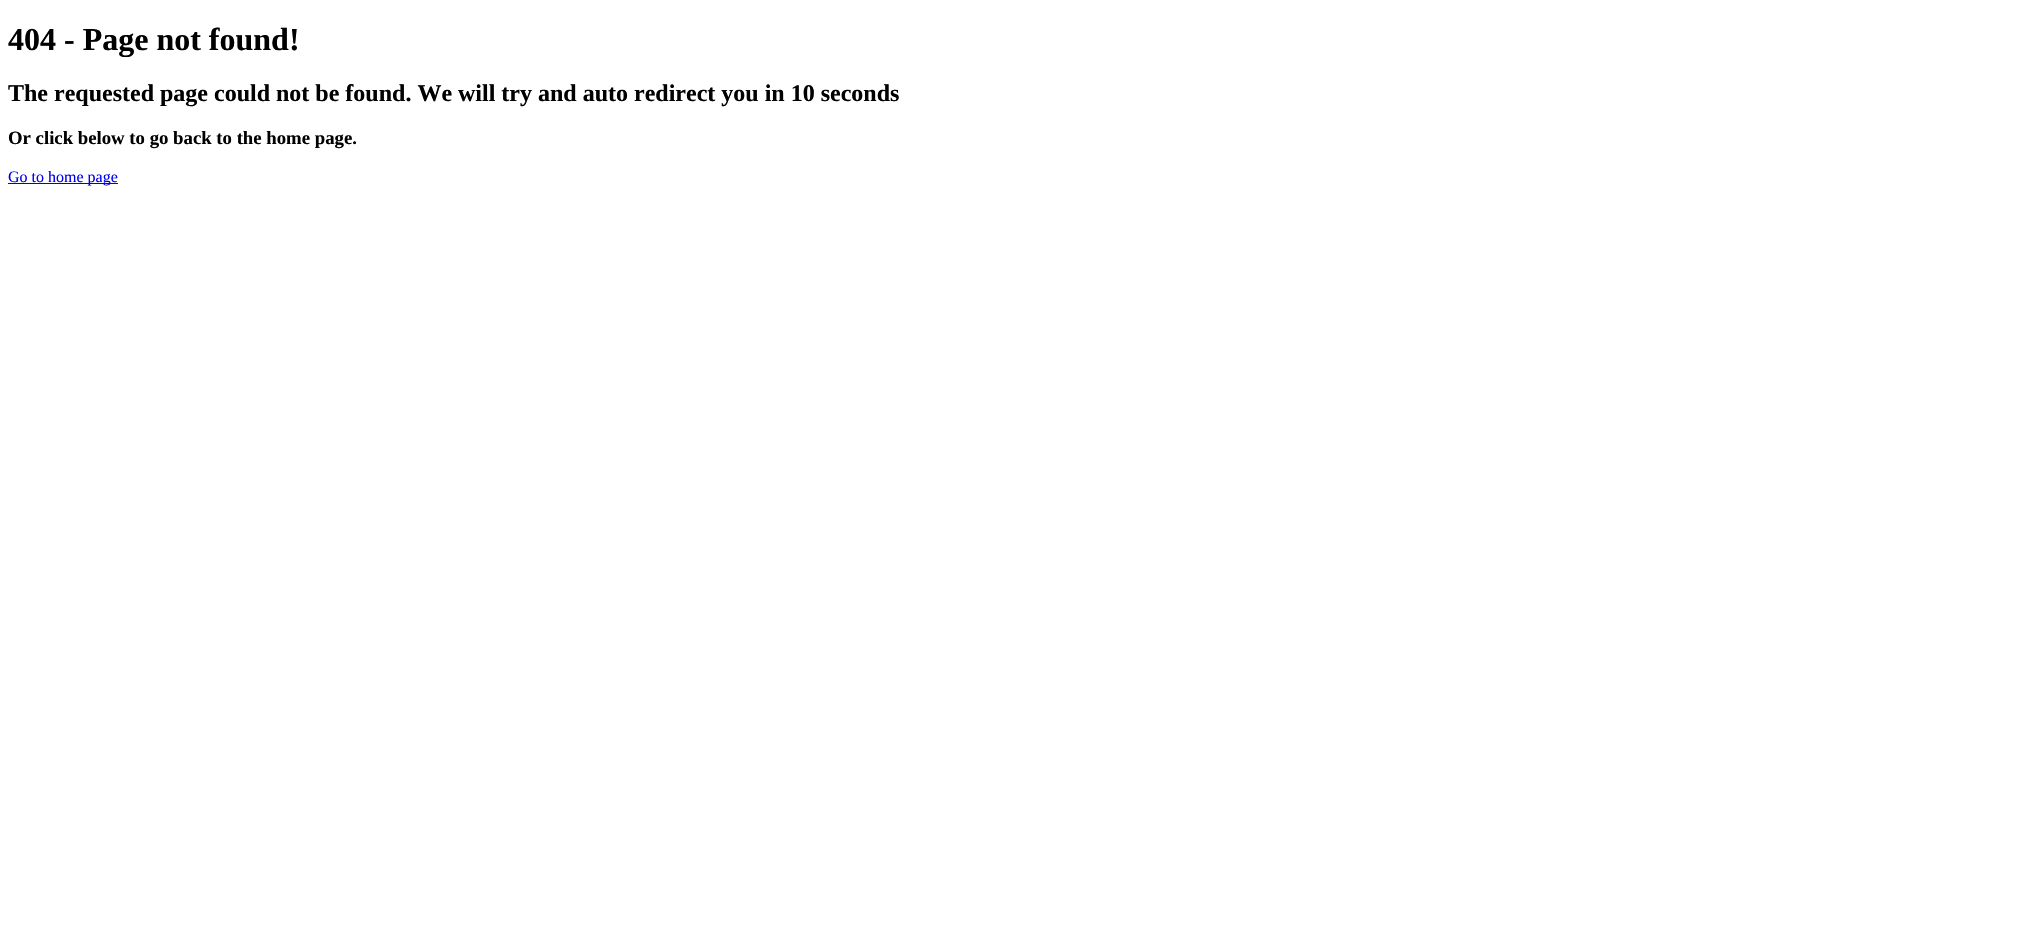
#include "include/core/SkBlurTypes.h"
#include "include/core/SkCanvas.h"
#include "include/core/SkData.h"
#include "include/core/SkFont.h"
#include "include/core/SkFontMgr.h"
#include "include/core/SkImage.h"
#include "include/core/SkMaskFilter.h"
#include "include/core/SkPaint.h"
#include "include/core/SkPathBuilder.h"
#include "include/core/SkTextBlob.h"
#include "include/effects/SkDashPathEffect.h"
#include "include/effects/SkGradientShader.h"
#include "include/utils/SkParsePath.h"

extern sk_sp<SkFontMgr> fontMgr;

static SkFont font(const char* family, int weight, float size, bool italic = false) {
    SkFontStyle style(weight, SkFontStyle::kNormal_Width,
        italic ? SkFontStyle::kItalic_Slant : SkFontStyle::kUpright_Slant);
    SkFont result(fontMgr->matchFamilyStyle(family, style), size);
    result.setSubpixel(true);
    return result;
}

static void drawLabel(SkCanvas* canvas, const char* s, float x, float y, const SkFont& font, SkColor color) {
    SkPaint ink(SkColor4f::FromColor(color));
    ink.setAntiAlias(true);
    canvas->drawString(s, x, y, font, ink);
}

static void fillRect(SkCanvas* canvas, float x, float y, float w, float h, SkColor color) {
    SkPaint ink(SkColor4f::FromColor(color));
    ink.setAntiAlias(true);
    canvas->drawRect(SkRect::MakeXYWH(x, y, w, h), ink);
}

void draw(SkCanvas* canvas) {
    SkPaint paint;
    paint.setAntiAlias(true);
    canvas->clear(0xFFFFFFFF);
    SkFont font1 = font("Liberation Serif", 700, 32);
    drawLabel(canvas, "404 - Page not found!", 8, 50, font1, 0xFF000000);
    SkFont font2 = font("Liberation Serif", 700, 24);
    drawLabel(canvas, "The requested page could not be found. We will try and auto redirect you in 10 seconds", 8, 101, font2, 0xFF000000);
    SkFont font3 = font("Liberation Serif", 700, 18.75f);
    drawLabel(canvas, "Or click below to go back to the home page.", 8, 144, font3, 0xFF000000);
    fillRect(canvas, 8, 183, 110, 1, 0xFF0000EE);
    SkFont font4 = font("Liberation Serif", 400, 16);
    drawLabel(canvas, "Go to home page", 8, 182, font4, 0xFF0000EE);
}
